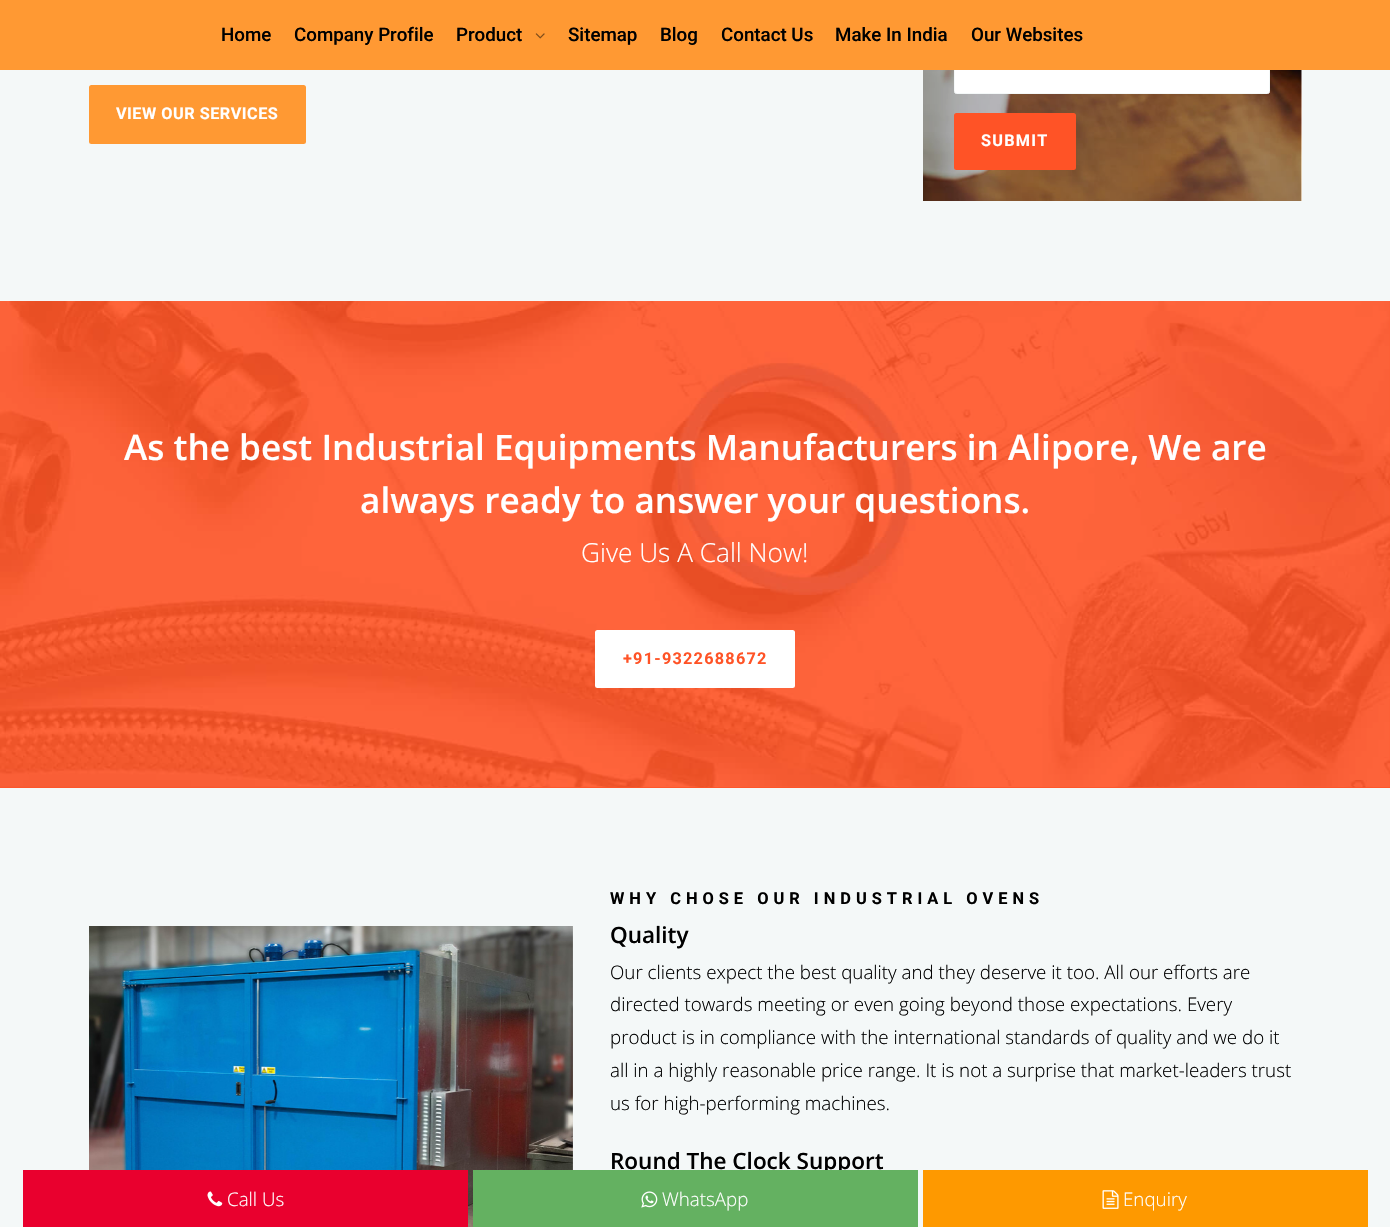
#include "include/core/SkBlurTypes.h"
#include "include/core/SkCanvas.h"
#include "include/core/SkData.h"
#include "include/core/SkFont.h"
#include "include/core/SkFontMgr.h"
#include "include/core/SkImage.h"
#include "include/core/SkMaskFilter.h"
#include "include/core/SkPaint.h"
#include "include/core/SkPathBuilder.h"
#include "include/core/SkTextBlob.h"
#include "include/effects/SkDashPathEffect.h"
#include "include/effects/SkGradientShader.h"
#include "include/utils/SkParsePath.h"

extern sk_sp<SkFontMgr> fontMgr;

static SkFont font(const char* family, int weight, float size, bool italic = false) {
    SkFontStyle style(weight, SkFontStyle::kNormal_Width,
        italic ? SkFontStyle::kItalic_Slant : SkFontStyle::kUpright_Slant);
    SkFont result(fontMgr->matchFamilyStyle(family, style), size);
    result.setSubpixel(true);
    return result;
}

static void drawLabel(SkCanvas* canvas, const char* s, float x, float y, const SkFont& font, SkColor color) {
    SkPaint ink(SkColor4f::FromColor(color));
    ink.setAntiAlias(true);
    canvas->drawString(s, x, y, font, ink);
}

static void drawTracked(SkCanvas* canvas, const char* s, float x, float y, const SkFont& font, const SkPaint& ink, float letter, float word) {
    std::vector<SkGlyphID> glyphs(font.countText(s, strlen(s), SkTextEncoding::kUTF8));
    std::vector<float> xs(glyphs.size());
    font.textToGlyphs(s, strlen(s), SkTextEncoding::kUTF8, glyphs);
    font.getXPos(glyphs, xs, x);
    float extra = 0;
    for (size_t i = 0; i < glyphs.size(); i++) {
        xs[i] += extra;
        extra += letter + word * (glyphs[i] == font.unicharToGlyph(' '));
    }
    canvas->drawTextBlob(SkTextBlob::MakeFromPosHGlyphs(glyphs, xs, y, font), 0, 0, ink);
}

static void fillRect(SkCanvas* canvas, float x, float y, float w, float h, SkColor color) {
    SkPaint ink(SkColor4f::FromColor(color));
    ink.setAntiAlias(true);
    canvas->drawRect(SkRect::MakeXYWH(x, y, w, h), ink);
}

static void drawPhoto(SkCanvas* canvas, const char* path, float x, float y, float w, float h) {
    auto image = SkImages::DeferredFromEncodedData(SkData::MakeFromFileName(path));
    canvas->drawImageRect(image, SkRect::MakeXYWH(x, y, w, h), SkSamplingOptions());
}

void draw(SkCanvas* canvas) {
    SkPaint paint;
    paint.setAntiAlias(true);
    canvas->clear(0xFFF4F8F8);
    drawPhoto(canvas, "assets/img2.png", 923, 70, 379, 131);
    paint.setColor(0xFFFFFFFF);
    canvas->drawRoundRect(SkRect::MakeXYWH(954.5f, -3.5f, 315, 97), 2, 2, paint);
    paint.setStroke(true);
    paint.setStrokeWidth(1);
    paint.setColor(0xFFF4F8F8);
    canvas->drawRoundRect(SkRect::MakeXYWH(954.5f, -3.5f, 315, 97), 2, 2, paint);
    fillRect(canvas, 0, 0, 1390, 70, 0xFFFF9933);
    SkFont font1 = font("Roboto", 500, 18.75f);
    drawLabel(canvas, "Home", 221, 41, font1, 0xFF000000);
    drawLabel(canvas, "Company Profile", 294, 41, font1, 0xFF000000);
    drawLabel(canvas, "Product", 456, 41, font1, 0xFF000000);
    drawPhoto(canvas, "assets/img1.png", 535, 33, 10, 6);
    drawLabel(canvas, "Sitemap", 568, 41, font1, 0xFF000000);
    drawLabel(canvas, "Blog", 660, 41, font1, 0xFF000000);
    drawLabel(canvas, "Contact Us", 721, 41, font1, 0xFF000000);
    drawLabel(canvas, "Make In India", 835, 41, font1, 0xFF000000);
    drawLabel(canvas, "Our Websites", 971, 41, font1, 0xFF000000);
    paint.setStroke(false);
    paint.setColor(0xFFFF9933);
    canvas->drawRoundRect(SkRect::MakeXYWH(90.5f, 86.5f, 214, 56), 1, 1, paint);
    paint.setStroke(true);
    paint.setStrokeWidth(3);
    canvas->drawRoundRect(SkRect::MakeXYWH(90.5f, 86.5f, 214, 56), 1, 1, paint);
    SkFont font2 = font("Roboto", 700, 16.25f);
    paint.setStroke(false);
    paint.setColor(0xFFFFFFFF);
    drawTracked(canvas, "VIEW OUR SERVICES", 116, 119, font2, paint, 0.5f, 0);
    paint.setColor(0xFFFF5326);
    canvas->drawRoundRect(SkRect::MakeXYWH(955.5f, 114.5f, 119, 54), 1, 1, paint);
    paint.setStroke(true);
    canvas->drawRoundRect(SkRect::MakeXYWH(955.5f, 114.5f, 119, 54), 1, 1, paint);
    paint.setStroke(false);
    paint.setColor(0xFFFFFFFF);
    drawTracked(canvas, "SUBMIT", 981, 146, font2, paint, 1.25f, 0);
    fillRect(canvas, 0, 301, 1390, 487, 0xFFFF5326);
    drawPhoto(canvas, "assets/img3.png", 0, 301, 1390, 487);
    SkFont font3 = font("Open Sans", 600, 35.15f);
    drawLabel(canvas, "As the best Industrial Equipments Manufacturers in Alipore, We are", 124, 460, font3, 0xFFFFFFFF);
    drawLabel(canvas, "always ready to answer your questions.", 360, 513, font3, 0xFFFFFFFF);
    SkFont font4 = font("Open Sans", 300, 26.25f);
    drawLabel(canvas, "Give Us A Call Now!", 581, 562, font4, 0xFFFFFFFF);
    canvas->drawRoundRect(SkRect::MakeXYWH(596.5f, 631.5f, 197, 55), 1, 1, paint);
    paint.setStroke(true);
    canvas->drawRoundRect(SkRect::MakeXYWH(596.5f, 631.5f, 197, 55), 1, 1, paint);
    paint.setStroke(false);
    paint.setColor(0xFFFF5326);
    drawTracked(canvas, "+91-9322688672", 623, 664, font2, paint, 1.25f, 0);
    drawPhoto(canvas, "assets/img4.png", 89, 926, 484, 301);
    SkFont font5 = font("Roboto", 700, 16.4f);
    paint.setColor(0xFF000000);
    drawTracked(canvas, "WHY CHOSE OUR INDUSTRIAL OVENS", 610, 904, font5, paint, 5, 0);
    SkFont font6 = font("Open Sans", 600, 22.5f);
    drawLabel(canvas, "Quality", 610, 943, font6, 0xFF000000);
    SkFont font7 = font("Open Sans", 300, 18.75f);
    drawLabel(canvas, "Our clients expect the best quality and they deserve it too. All our efforts are", 610, 979, font7, 0xFF000000);
    drawLabel(canvas, "directed towards meeting or even going beyond those expectations. Every", 610, 1011, font7, 0xFF000000);
    drawLabel(canvas, "product is in compliance with the international standards of quality and we do it", 610, 1044, font7, 0xFF000000);
    drawLabel(canvas, "all in a highly reasonable price range. It is not a surprise that market-leaders trust", 610, 1077, font7, 0xFF000000);
    drawLabel(canvas, "us for high-performing machines.", 610, 1110, font7, 0xFF000000);
    drawLabel(canvas, "Round The Clock Support", 610, 1169, font6, 0xFF000000);
    fillRect(canvas, 23, 1170, 445, 57, 0xFFE9002E);
    drawPhoto(canvas, "assets/img5.png", 207, 1191, 16, 16);
    drawLabel(canvas, "Call Us", 227, 1206, font7, 0xFFFFFFFF);
    fillRect(canvas, 473, 1170, 445, 57, 0xFF64B161);
    drawPhoto(canvas, "assets/img6.png", 641, 1191, 17, 17);
    drawLabel(canvas, "WhatsApp", 662, 1206, font7, 0xFFFFFFFF);
    fillRect(canvas, 923, 1170, 445, 57, 0xFFFE9900);
    drawPhoto(canvas, "assets/img7.png", 1102, 1190, 17, 19);
    drawLabel(canvas, "Enquiry", 1123, 1206, font7, 0xFFFFFFFF);
}
